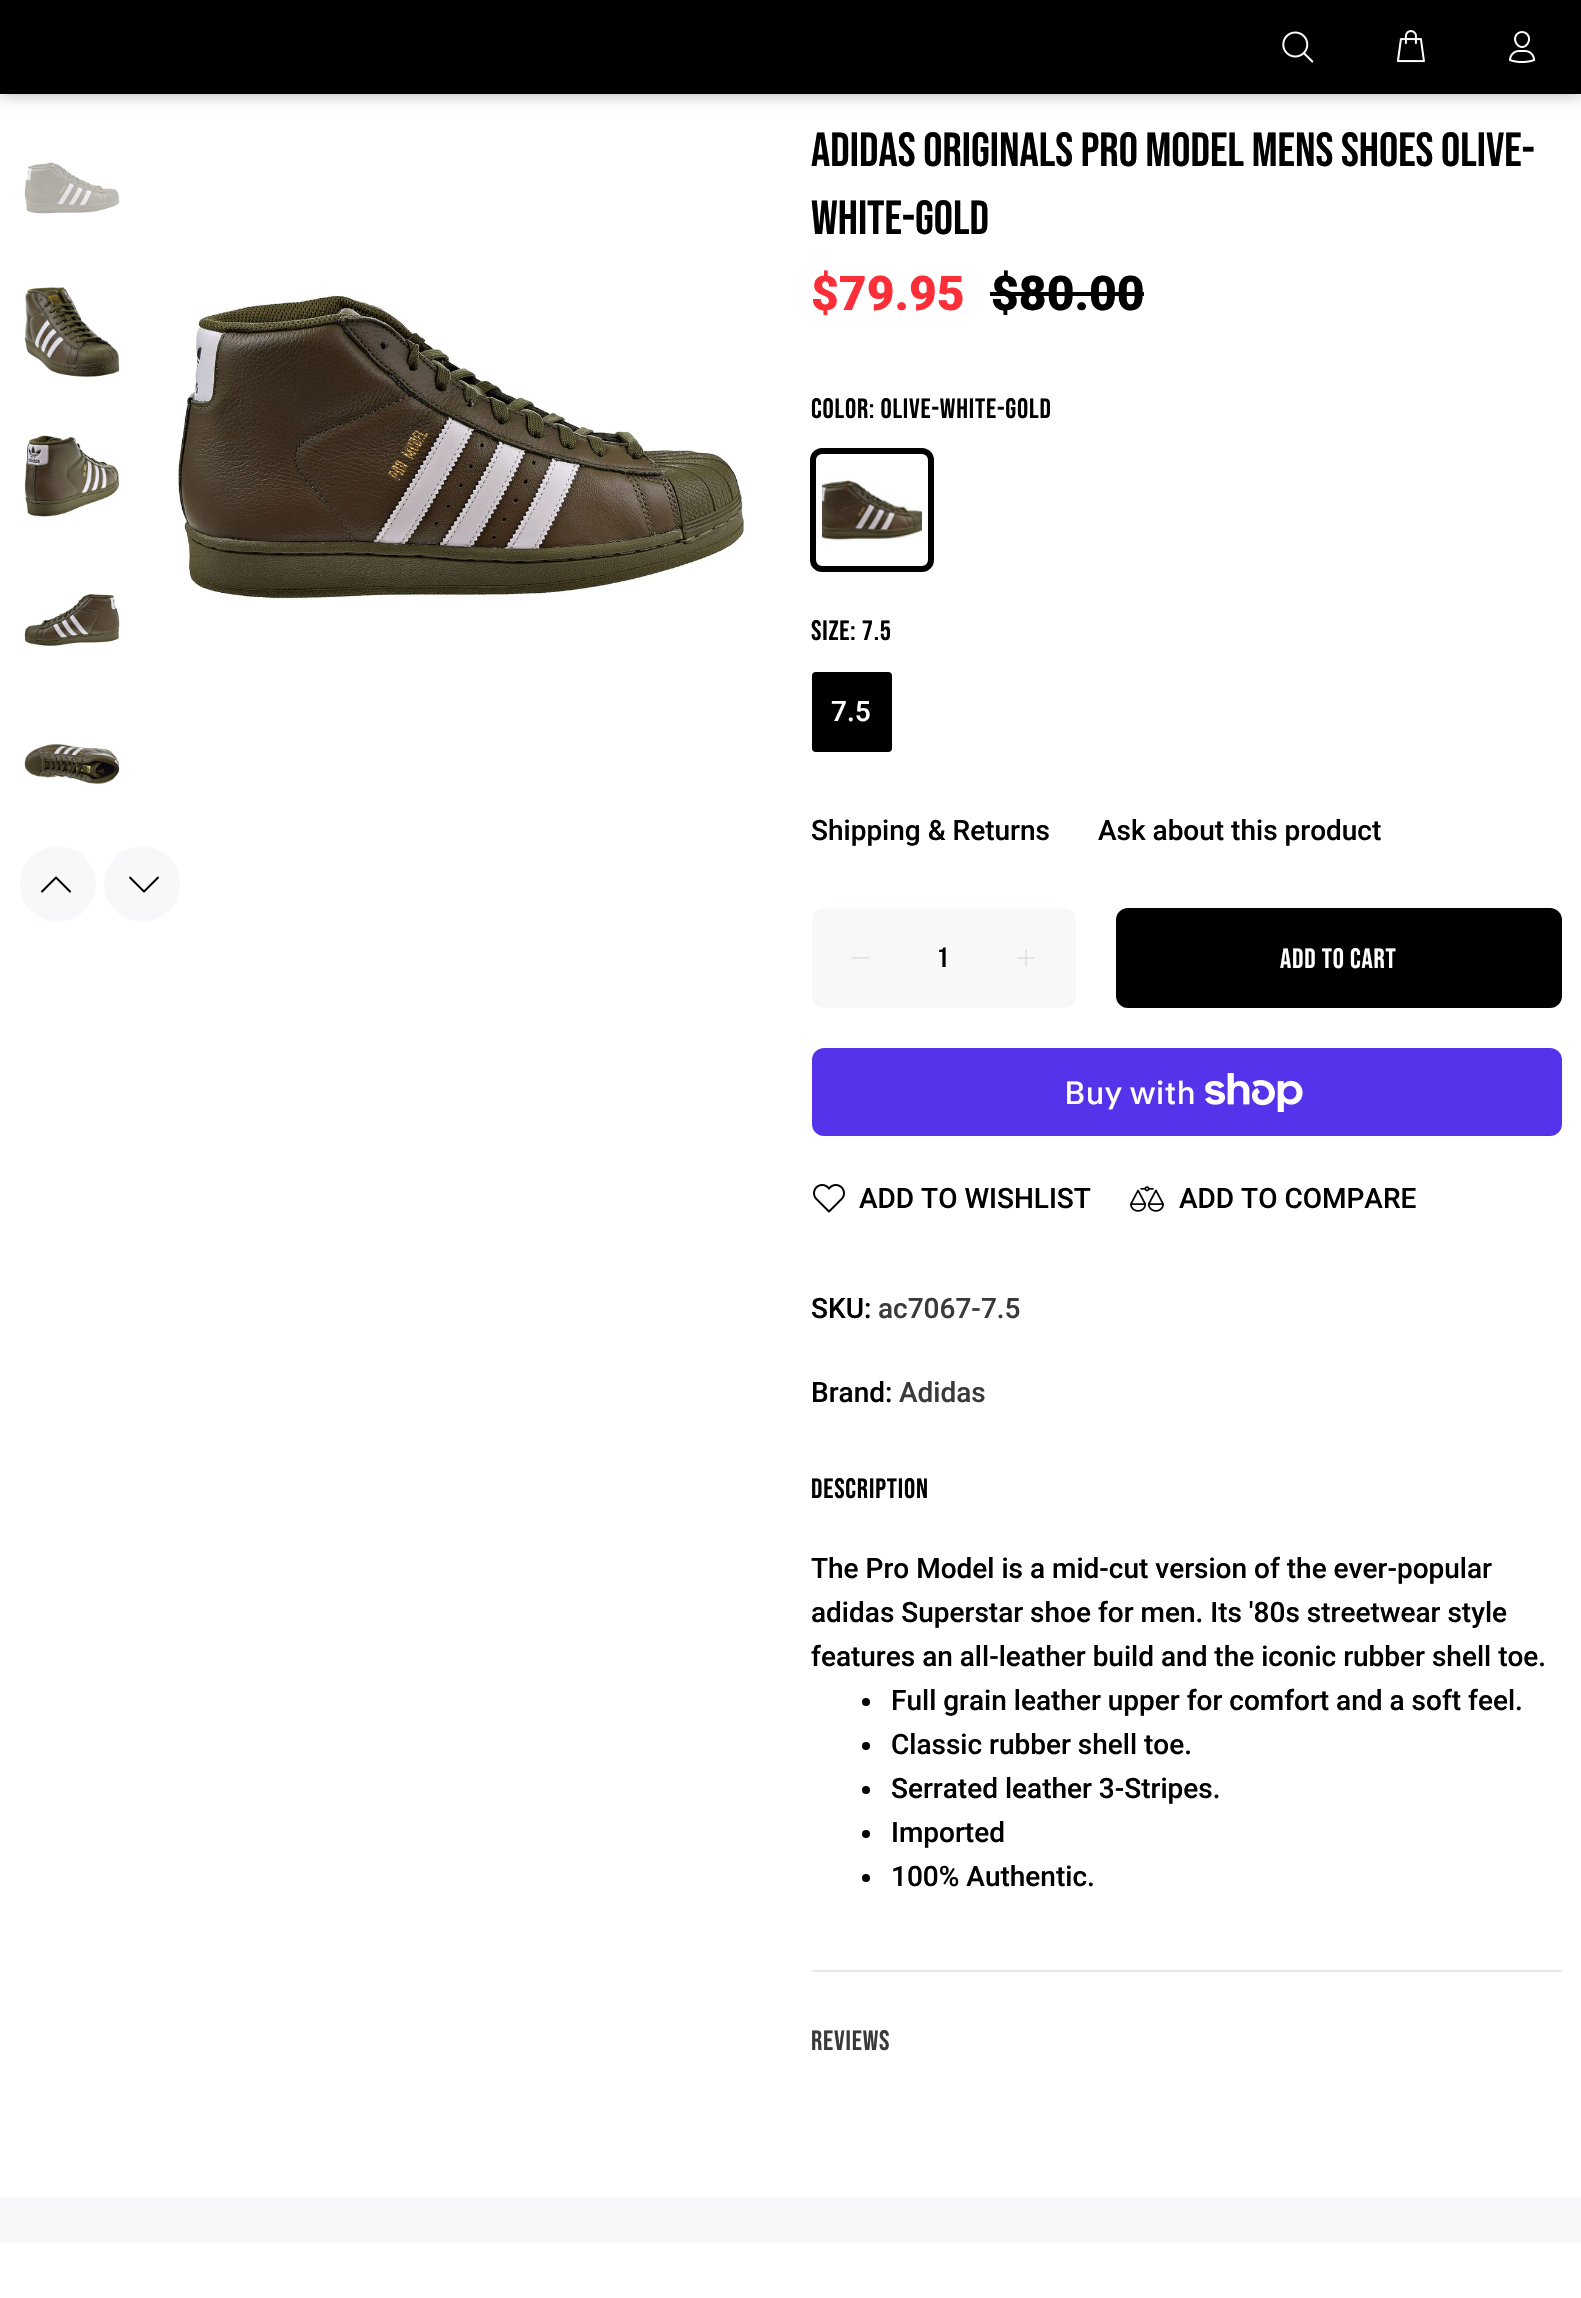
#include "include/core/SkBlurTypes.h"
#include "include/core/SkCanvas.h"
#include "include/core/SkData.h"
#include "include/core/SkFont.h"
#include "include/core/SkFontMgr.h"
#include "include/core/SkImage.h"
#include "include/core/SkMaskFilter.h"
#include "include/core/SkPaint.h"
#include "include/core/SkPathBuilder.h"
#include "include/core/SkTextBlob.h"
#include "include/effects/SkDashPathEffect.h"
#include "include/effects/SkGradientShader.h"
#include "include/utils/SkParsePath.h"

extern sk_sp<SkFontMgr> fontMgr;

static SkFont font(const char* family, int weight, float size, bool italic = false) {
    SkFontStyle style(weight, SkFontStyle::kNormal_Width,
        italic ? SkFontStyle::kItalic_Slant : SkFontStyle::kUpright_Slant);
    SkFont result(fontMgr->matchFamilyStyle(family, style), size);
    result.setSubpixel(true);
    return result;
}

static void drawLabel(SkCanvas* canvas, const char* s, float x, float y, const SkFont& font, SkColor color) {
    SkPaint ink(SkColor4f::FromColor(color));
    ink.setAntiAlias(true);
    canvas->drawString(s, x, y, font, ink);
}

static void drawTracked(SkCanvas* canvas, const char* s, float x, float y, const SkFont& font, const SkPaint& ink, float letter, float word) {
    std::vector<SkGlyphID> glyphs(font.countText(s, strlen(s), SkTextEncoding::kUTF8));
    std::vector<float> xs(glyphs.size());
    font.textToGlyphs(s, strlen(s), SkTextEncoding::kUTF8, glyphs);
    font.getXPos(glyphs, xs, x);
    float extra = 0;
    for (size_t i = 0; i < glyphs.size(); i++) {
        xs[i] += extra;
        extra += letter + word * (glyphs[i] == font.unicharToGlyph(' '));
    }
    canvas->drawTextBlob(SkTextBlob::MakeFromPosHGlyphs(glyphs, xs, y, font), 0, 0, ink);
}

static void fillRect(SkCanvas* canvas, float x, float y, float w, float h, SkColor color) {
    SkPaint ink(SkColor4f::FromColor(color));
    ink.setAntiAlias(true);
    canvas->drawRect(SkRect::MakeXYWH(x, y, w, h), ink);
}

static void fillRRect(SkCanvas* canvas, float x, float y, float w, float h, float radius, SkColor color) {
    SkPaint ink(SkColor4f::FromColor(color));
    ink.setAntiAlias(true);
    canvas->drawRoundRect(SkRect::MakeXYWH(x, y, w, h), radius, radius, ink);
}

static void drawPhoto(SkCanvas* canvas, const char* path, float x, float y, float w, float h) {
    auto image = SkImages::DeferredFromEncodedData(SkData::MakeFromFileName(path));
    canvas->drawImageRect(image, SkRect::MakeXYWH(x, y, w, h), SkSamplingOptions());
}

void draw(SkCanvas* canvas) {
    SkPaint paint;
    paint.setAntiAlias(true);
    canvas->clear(0xFFFFFFFF);
    paint.setColor(0x4D000000);
    paint.setMaskFilter(SkMaskFilter::MakeBlur(kNormal_SkBlurStyle, 8));
    canvas->drawRect(SkRect::MakeXYWH(0, 0, 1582, 94), paint);
    paint.setMaskFilter(nullptr);
    fillRect(canvas, 0, 0, 1581, 94, 0xFF000000);
    drawPhoto(canvas, "assets/img1.png", 1282, 31, 32, 32);
    drawPhoto(canvas, "assets/img2.png", 1396, 30, 29, 33);
    drawPhoto(canvas, "assets/img3.png", 1509, 31, 27, 32);
    drawPhoto(canvas, "assets/img4.png", 24, 162, 96, 52);
    drawPhoto(canvas, "assets/img5.png", 24, 287, 96, 90);
    drawPhoto(canvas, "assets/img6.png", 24, 435, 96, 82);
    drawPhoto(canvas, "assets/img7.png", 24, 593, 96, 53);
    drawPhoto(canvas, "assets/img8.png", 24, 744, 96, 40);
    paint.setColor(0xFFF7F8FA);
    canvas->drawCircle(58, 884, 38, paint);
    drawPhoto(canvas, "assets/img9.png", 41, 876, 30, 17);
    canvas->drawCircle(142, 884, 38, paint);
    drawPhoto(canvas, "assets/img10.png", 129, 876, 30, 17);
    drawPhoto(canvas, "assets/img11.png", 177, 294, 568, 306);
    SkFont font1 = font("Bebas Neue", 400, 48);
    drawLabel(canvas, "Adidas Originals Pro Model Mens Shoes Olive-", 811, 166, font1, 0xFF000000);
    drawLabel(canvas, "White-Gold", 811, 234, font1, 0xFF000000);
    SkFont font2 = font("Roboto", 900, 48);
    drawLabel(canvas, "$79.95", 811, 310, font2, 0xFFFC2E37);
    drawLabel(canvas, "$80.00", 991, 310, font2, 0xFF000000);
    fillRect(canvas, 990, 292, 154, 4, 0xFF000000);
    SkFont font3 = font("Bebas Neue", 400, 28);
    paint.setColor(0xFF000000);
    drawTracked(canvas, "Color: Olive-White-Gold", 811, 418, font3, paint, 0.8f, 0);
    drawPhoto(canvas, "assets/img12.png", 822, 479, 100, 62);
    paint.setStroke(true);
    paint.setStrokeWidth(6);
    canvas->drawRoundRect(SkRect::MakeXYWH(813, 451, 118, 118), 9, 9, paint);
    paint.setStroke(false);
    drawTracked(canvas, "Size: 7.5", 811, 640, font3, paint, 0.8f, 0);
    fillRRect(canvas, 812, 672, 80, 80, 4, 0xFF000000);
    SkFont font4 = font("Roboto", 500, 28);
    drawLabel(canvas, "7.5", 831, 721, font4, 0xFFFFFFFF);
    drawLabel(canvas, "Shipping & Returns", 811, 840, font4, 0xFF000000);
    drawLabel(canvas, "Ask about this product", 1098, 840, font4, 0xFF000000);
    fillRRect(canvas, 812, 908, 264, 100, 12, 0xFFF7F8FA);
    drawPhoto(canvas, "assets/img13.png", 851, 957, 18, 2);
    drawLabel(canvas, "1", 937, 967, font3, 0xFF000000);
    drawPhoto(canvas, "assets/img14.png", 1017, 949, 18, 18);
    fillRRect(canvas, 1116, 908, 446, 100, 12, 0xFF000000);
    paint.setColor(0xFFFFFFFF);
    drawTracked(canvas, "ADD TO CART", 1280, 968, font3, paint, 0.8f, 0);
    fillRRect(canvas, 812, 1048, 750, 88, 12, 0xFF5433EB);
    SkFont font5 = font("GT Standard", 500, 32);
    drawLabel(canvas, "Buy with", 1064, 1104, font5, 0xFFFFFFFF);
    drawPhoto(canvas, "assets/img15.png", 1205, 1073, 98, 39);
    drawPhoto(canvas, "assets/img16.png", 813, 1184, 32, 29);
    drawLabel(canvas, "ADD TO WISHLIST", 859, 1208, font4, 0xFF000000);
    drawPhoto(canvas, "assets/img17.png", 1130, 1186, 34, 26);
    drawLabel(canvas, "ADD TO COMPARE", 1179, 1208, font4, 0xFF000000);
    drawLabel(canvas, "SKU:", 811, 1318, font4, 0xFF000000);
    drawLabel(canvas, "ac7067-7.5", 878, 1318, font4, 0xFF3A3A3A);
    drawLabel(canvas, "Brand:", 811, 1402, font4, 0xFF000000);
    drawLabel(canvas, "Adidas", 899, 1402, font4, 0xFF3A3A3A);
    fillRect(canvas, 812, 1970, 750, 2, 0xFFE9E7E7);
    paint.setColor(0xFF000000);
    drawTracked(canvas, "DESCRIPTION", 811, 1498, font3, paint, 0.8f, 0);
    drawLabel(canvas, "The Pro Model is a mid-cut version of the ever-popular", 811, 1578, font4, 0xFF000000);
    drawLabel(canvas, "adidas Superstar shoe for men. Its '80s streetwear style", 811, 1622, font4, 0xFF000000);
    drawLabel(canvas, "features an all-leather build and the iconic rubber shell toe.", 811, 1666, font4, 0xFF000000);
    canvas->drawCircle(866, 1702, 4, paint);
    drawLabel(canvas, "Full grain leather upper for comfort and a soft feel.", 891, 1710, font4, 0xFF000000);
    canvas->drawCircle(866, 1746, 4, paint);
    drawLabel(canvas, "Classic rubber shell toe.", 891, 1754, font4, 0xFF000000);
    canvas->drawCircle(866, 1790, 4, paint);
    drawLabel(canvas, "Serrated leather 3-Stripes.", 891, 1798, font4, 0xFF000000);
    canvas->drawCircle(866, 1834, 4, paint);
    drawLabel(canvas, "Imported", 891, 1842, font4, 0xFF000000);
    canvas->drawCircle(866, 1878, 4, paint);
    drawLabel(canvas, "100% Authentic.", 891, 1886, font4, 0xFF000000);
    paint.setColor(0xFF3A3A3A);
    drawTracked(canvas, "REVIEWS", 811, 2050, font3, paint, 0.8f, 0);
    fillRect(canvas, 0, 2198, 1581, 44, 0xFFF7F8FA);
}
